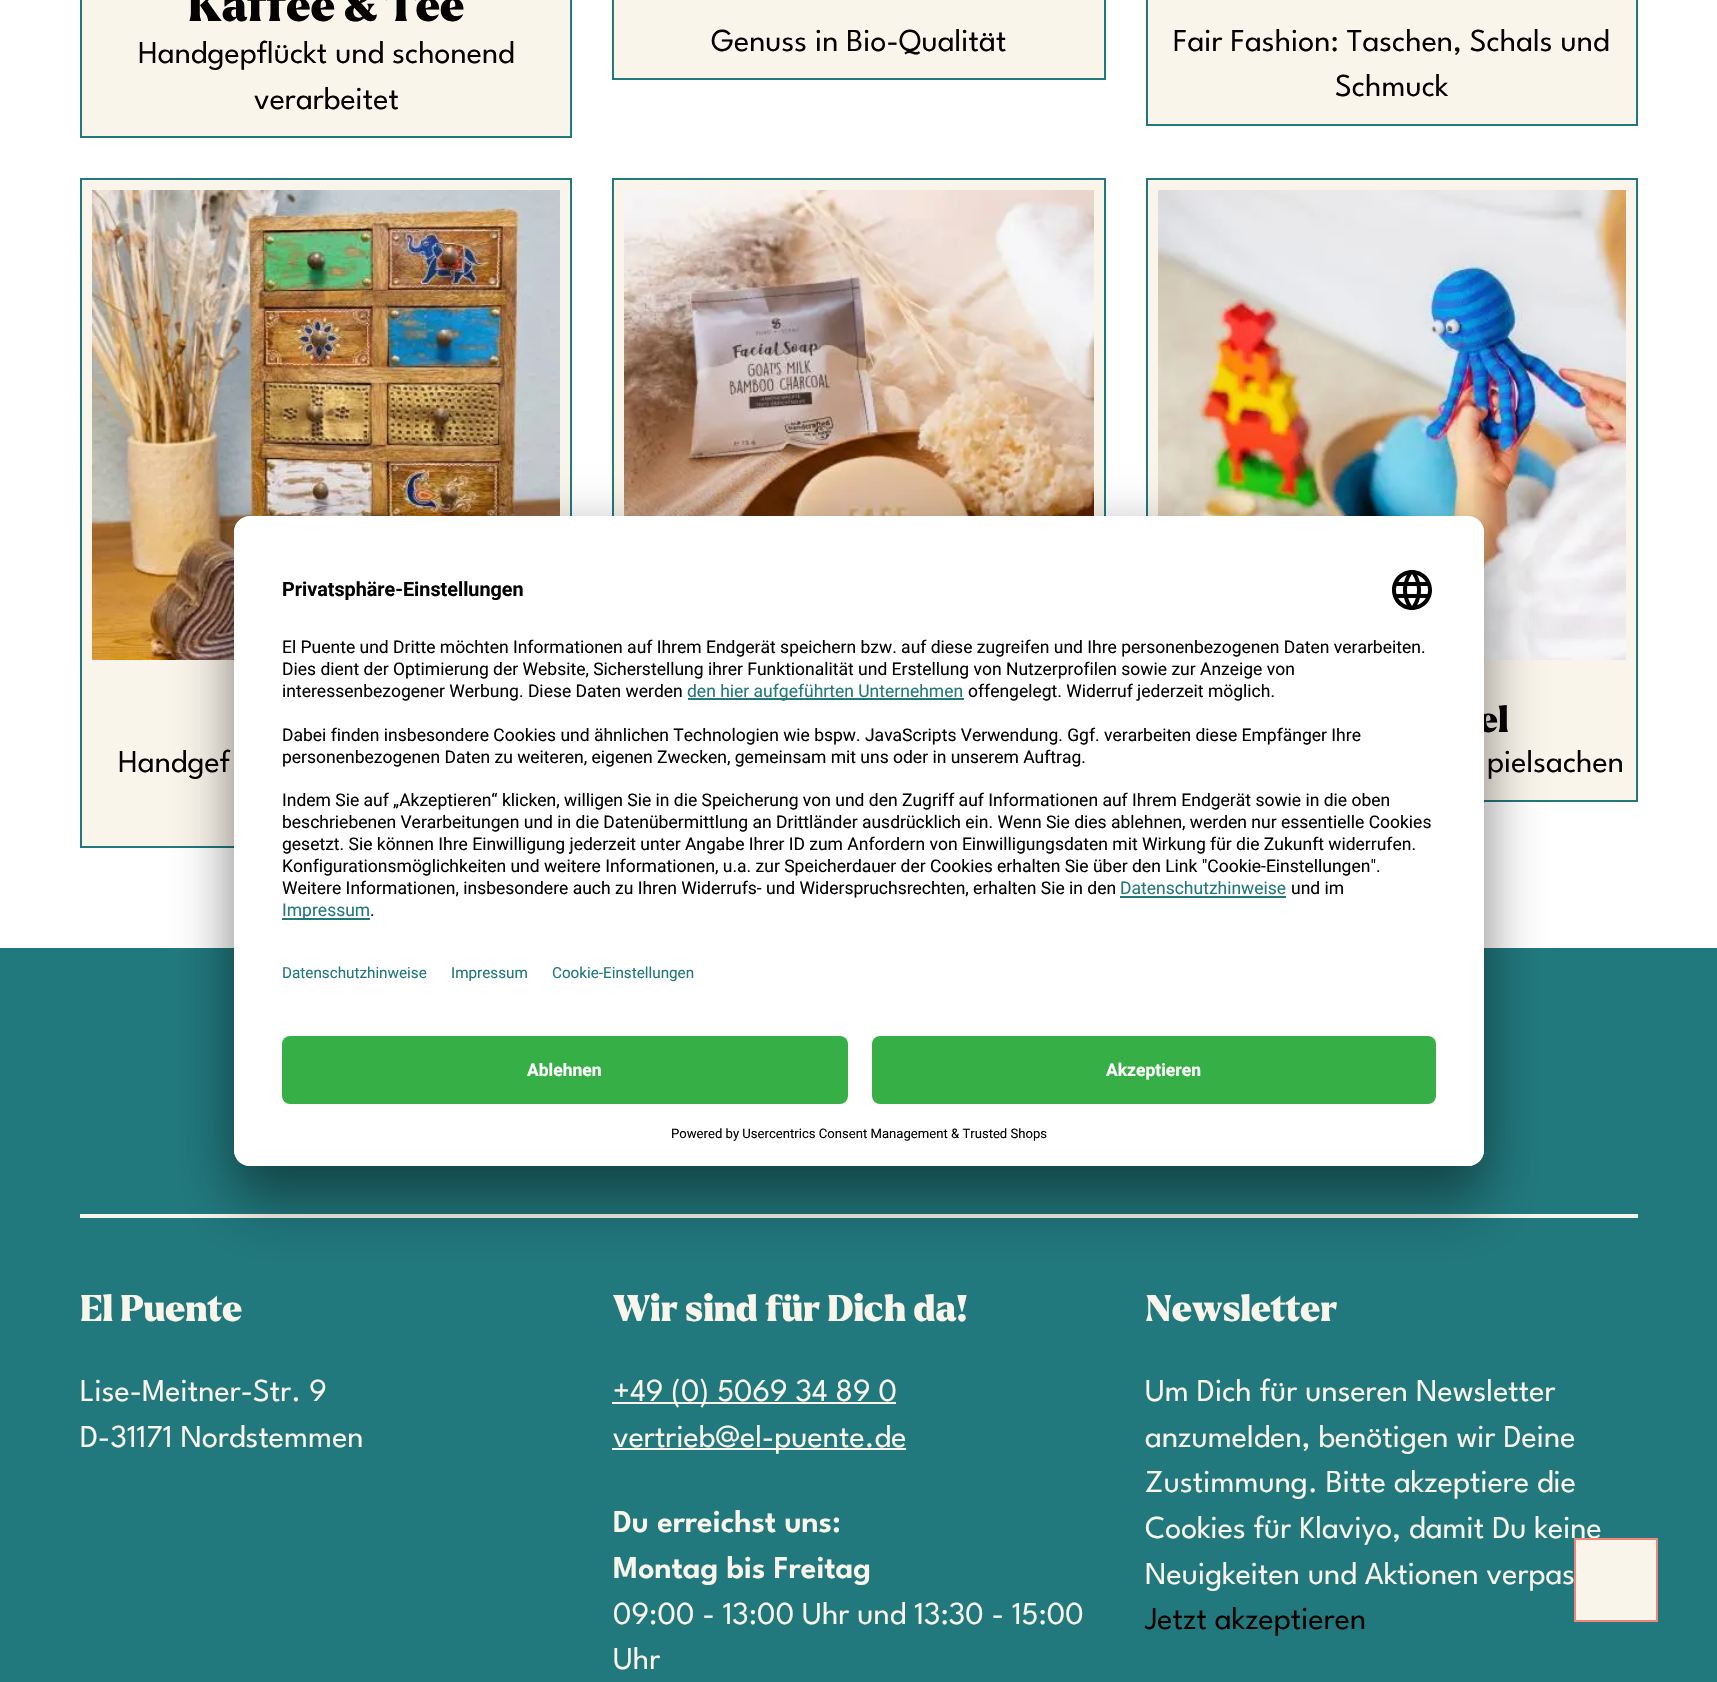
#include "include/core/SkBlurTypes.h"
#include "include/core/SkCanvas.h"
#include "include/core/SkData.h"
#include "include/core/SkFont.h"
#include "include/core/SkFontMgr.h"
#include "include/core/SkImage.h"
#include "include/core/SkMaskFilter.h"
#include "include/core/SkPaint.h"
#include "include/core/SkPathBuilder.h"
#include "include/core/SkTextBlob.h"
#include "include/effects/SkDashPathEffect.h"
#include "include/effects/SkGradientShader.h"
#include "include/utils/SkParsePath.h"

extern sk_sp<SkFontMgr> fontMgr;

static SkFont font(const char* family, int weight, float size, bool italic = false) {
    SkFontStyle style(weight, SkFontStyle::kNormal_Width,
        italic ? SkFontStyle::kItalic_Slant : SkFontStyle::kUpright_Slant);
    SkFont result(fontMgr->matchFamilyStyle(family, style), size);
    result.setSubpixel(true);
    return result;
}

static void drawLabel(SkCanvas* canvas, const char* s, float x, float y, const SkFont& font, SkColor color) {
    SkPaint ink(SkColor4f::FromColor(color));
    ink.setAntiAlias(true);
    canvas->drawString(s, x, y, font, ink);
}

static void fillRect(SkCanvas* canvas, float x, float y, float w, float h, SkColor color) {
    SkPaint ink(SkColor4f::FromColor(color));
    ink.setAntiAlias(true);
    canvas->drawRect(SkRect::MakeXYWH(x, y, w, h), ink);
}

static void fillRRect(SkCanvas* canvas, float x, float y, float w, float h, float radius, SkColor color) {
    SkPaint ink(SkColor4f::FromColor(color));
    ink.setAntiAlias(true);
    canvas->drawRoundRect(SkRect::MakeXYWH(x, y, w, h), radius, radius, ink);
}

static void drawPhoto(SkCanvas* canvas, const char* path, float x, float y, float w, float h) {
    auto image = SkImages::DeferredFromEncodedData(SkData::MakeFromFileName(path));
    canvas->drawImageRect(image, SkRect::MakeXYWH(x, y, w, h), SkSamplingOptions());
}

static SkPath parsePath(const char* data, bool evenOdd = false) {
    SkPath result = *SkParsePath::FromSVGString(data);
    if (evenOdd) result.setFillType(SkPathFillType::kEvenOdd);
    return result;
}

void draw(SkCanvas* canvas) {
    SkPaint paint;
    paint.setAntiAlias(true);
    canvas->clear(0xFFFFFFFF);
    paint.setColor(0xFFFAF5EB);
    canvas->drawRect(SkRect::MakeXYWH(81, -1, 490, 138), paint);
    paint.setStroke(true);
    paint.setStrokeWidth(2);
    paint.setColor(0xFF21787D);
    canvas->drawRect(SkRect::MakeXYWH(81, -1, 490, 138), paint);
    SkFont font1 = font("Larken", 900, 44);
    drawLabel(canvas, "Kaffee & Tee", 188, 21, font1, 0xFF050202);
    SkFont font2 = font("League Spartan", 400, 32);
    drawLabel(canvas, "Handgepflückt und schonend", 138, 63, font2, 0xFF050202);
    drawLabel(canvas, "verarbeitet", 254, 109, font2, 0xFF050202);
    paint.setStroke(false);
    paint.setColor(0xFFFAF5EB);
    canvas->drawRect(SkRect::MakeXYWH(613, -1, 492, 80), paint);
    paint.setStroke(true);
    paint.setColor(0xFF21787D);
    canvas->drawRect(SkRect::MakeXYWH(613, -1, 492, 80), paint);
    drawLabel(canvas, "Genuss in Bio-Qualität", 711, 51, font2, 0xFF050202);
    paint.setStroke(false);
    paint.setColor(0xFFFAF5EB);
    canvas->drawRect(SkRect::MakeXYWH(1147, -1, 490, 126), paint);
    paint.setStroke(true);
    paint.setColor(0xFF21787D);
    canvas->drawRect(SkRect::MakeXYWH(1147, -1, 490, 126), paint);
    drawLabel(canvas, "Fair Fashion: Taschen, Schals und", 1173, 51, font2, 0xFF050202);
    drawLabel(canvas, "Schmuck", 1335, 96, font2, 0xFF050202);
    paint.setStroke(false);
    paint.setColor(0xFFFAF5EB);
    canvas->drawRect(SkRect::MakeXYWH(81, 179, 490, 668), paint);
    paint.setStroke(true);
    paint.setColor(0xFF21787D);
    canvas->drawRect(SkRect::MakeXYWH(81, 179, 490, 668), paint);
    drawPhoto(canvas, "assets/img1.png", 92, 190, 468, 470);
    drawLabel(canvas, "Handgef", 118, 772, font2, 0xFF050202);
    fillRect(canvas, 614, 180, 490, 336, 0xFFFAF5EB);
    canvas->drawRect(SkRect::MakeXYWH(613, 179, 492, 622), paint);
    drawPhoto(canvas, "assets/img2.png", 624, 190, 470, 326);
    paint.setStroke(false);
    paint.setColor(0xFFFAF5EB);
    canvas->drawRect(SkRect::MakeXYWH(1147, 179, 490, 622), paint);
    paint.setStroke(true);
    paint.setColor(0xFF21787D);
    canvas->drawRect(SkRect::MakeXYWH(1147, 179, 490, 622), paint);
    drawPhoto(canvas, "assets/img3.png", 1158, 190, 468, 470);
    SkFont font3 = font("Larken", 900, 36);
    drawLabel(canvas, "el", 1478, 732, font3, 0xFF050202);
    drawLabel(canvas, "pielsachen", 1487, 772, font2, 0xFF050202);
    fillRect(canvas, 0, 948, 1717, 734, 0xFF21787D);
    fillRect(canvas, 80, 1214, 1558, 4, 0xFFFAF5EB);
    drawLabel(canvas, "El Puente", 80, 1321, font3, 0xFFFAF5EB);
    drawLabel(canvas, "Lise-Meitner-Str. 9", 80, 1401, font2, 0xFFFAF5EB);
    drawLabel(canvas, "D-31171 Nordstemmen", 80, 1447, font2, 0xFFFAF5EB);
    drawLabel(canvas, "Wir sind für Dich da!", 613, 1321, font3, 0xFFFAF5EB);
    fillRect(canvas, 612, 1402, 284, 2, 0xFFFAF5EB);
    drawLabel(canvas, "+49 (0) 5069 34 89 0", 613, 1401, font2, 0xFFFAF5EB);
    fillRect(canvas, 612, 1448, 294, 2, 0xFFFAF5EB);
    drawLabel(canvas, "vertrieb@el-puente.de", 613, 1447, font2, 0xFFFAF5EB);
    SkFont font4 = font("League Spartan", 600, 32);
    drawLabel(canvas, "Du erreichst uns:", 613, 1532, font4, 0xFFFAF5EB);
    drawLabel(canvas, "Montag bis Freitag", 613, 1578, font4, 0xFFFAF5EB);
    drawLabel(canvas, "09:00 - 13:00 Uhr und 13:30 - 15:00", 613, 1624, font2, 0xFFFAF5EB);
    drawLabel(canvas, "Uhr", 613, 1669, font2, 0xFFFAF5EB);
    drawLabel(canvas, "Newsletter", 1145, 1321, font3, 0xFFFAF5EB);
    drawLabel(canvas, "Um Dich für unseren Newsletter", 1145, 1401, font2, 0xFFFAF5EB);
    drawLabel(canvas, "anzumelden, benötigen wir Deine", 1145, 1447, font2, 0xFFFAF5EB);
    drawLabel(canvas, "Zustimmung. Bitte akzeptiere die", 1145, 1492, font2, 0xFFFAF5EB);
    drawLabel(canvas, "Cookies für Klaviyo, damit Du keine", 1145, 1538, font2, 0xFFFAF5EB);
    drawLabel(canvas, "Neuigkeiten und Aktionen verpas", 1145, 1584, font2, 0xFFFAF5EB);
    drawLabel(canvas, "Jetzt akzeptieren", 1145, 1629, font2, 0xFF050202);
    paint.setStroke(false);
    paint.setColor(0xFFFAF5EB);
    canvas->drawRect(SkRect::MakeXYWH(1575, 1539, 82, 82), paint);
    paint.setStroke(true);
    paint.setColor(0xFFED8778);
    canvas->drawRect(SkRect::MakeXYWH(1575, 1539, 82, 82), paint);
    paint.setStroke(false);
    paint.setColor(0x4D000000);
    paint.setMaskFilter(SkMaskFilter::MakeBlur(kNormal_SkBlurStyle, 28));
    canvas->drawRoundRect(SkRect::MakeXYWH(234, 556, 1250, 650), 16, 16, paint);
    paint.setMaskFilter(nullptr);
    paint.setColor(0x38000000);
    paint.setMaskFilter(SkMaskFilter::MakeBlur(kNormal_SkBlurStyle, 26));
    canvas->drawRoundRect(SkRect::MakeXYWH(234, 526, 1250, 650), 16, 16, paint);
    paint.setMaskFilter(nullptr);
    fillRRect(canvas, 234, 516, 1250, 650, 16, 0xFFFFFFFF);
    canvas->save();
    canvas->clipPath(parsePath("M250 516H1468C1477 516 1484 523 1484 532V1150C1484 1159 1477 1166 1468 1166H250C241 1166 234 1159 234 1150V532C234 523 241 516 250 516Z"), true);
    canvas->clipPath(parsePath("M250 516H1468C1477 516 1484 523 1484 532V1020H234V532C234 523 241 516 250 516Z"), true);
    fillRect(canvas, 234, 518, 1250, 502, 0xFFFFFFFF);
    canvas->restore();
    SkFont font5 = font("Roboto", 700, 19.75f);
    drawLabel(canvas, "Privatsphäre-Einstellungen", 282, 596, font5, 0xFF050202);
    drawPhoto(canvas, "assets/img4.png", 1392, 570, 40, 40);
    SkFont font6 = font("Roboto", 400, 17.5f);
    drawLabel(canvas, "El Puente und Dritte möchten Informationen auf Ihrem Endgerät speichern bzw. auf diese zugreifen und Ihre personenbezogenen Daten verarbeiten.", 282, 653, font6, 0xFF050202);
    drawLabel(canvas, "Dies dient der Optimierung der Website, Sicherstellung ihrer Funktionalität und Erstellung von Nutzerprofilen sowie zur Anzeige von", 282, 675, font6, 0xFF050202);
    drawLabel(canvas, "interessenbezogener Werbung. Diese Daten werden", 282, 697, font6, 0xFF050202);
    fillRect(canvas, 688, 698, 276, 2, 0xFF21787D);
    drawLabel(canvas, "den hier aufgeführten Unternehmen", 687, 697, font6, 0xFF21787D);
    drawLabel(canvas, "offengelegt. Widerruf jederzeit möglich.", 968, 697, font6, 0xFF050202);
    drawLabel(canvas, "Dabei finden insbesondere Cookies und ähnlichen Technologien wie bspw. JavaScripts Verwendung. Ggf. verarbeiten diese Empfänger Ihre", 282, 741, font6, 0xFF050202);
    drawLabel(canvas, "personenbezogenen Daten zu weiteren, eigenen Zwecken, gemeinsam mit uns oder in unserem Auftrag.", 282, 763, font6, 0xFF050202);
    drawLabel(canvas, "Indem Sie auf „Akzeptieren“ klicken, willigen Sie in die Speicherung von und den Zugriff auf Informationen auf Ihrem Endgerät sowie in die oben", 282, 806, font6, 0xFF050202);
    drawLabel(canvas, "beschriebenen Verarbeitungen und in die Datenübermittlung an Drittländer ausdrücklich ein. Wenn Sie dies ablehnen, werden nur essentielle Cookies", 282, 828, font6, 0xFF050202);
    drawLabel(canvas, "gesetzt. Sie können Ihre Einwilligung jederzeit unter Angabe Ihrer ID zum Anfordern von Einwilligungsdaten mit Wirkung für die Zukunft widerrufen.", 282, 850, font6, 0xFF050202);
    drawLabel(canvas, "Konfigurationsmöglichkeiten und weitere Informationen, u.a. zur Speicherdauer der Cookies erhalten Sie über den Link \"Cookie-Einstellungen\".", 282, 872, font6, 0xFF050202);
    drawLabel(canvas, "Weitere Informationen, insbesondere auch zu Ihren Widerrufs- und Widerspruchsrechten, erhalten Sie in den", 282, 894, font6, 0xFF050202);
    drawLabel(canvas, "Datenschutzhinweise", 1120, 894, font6, 0xFF21787D);
    fillRect(canvas, 1120, 896, 166, 2, 0xFF21787D);
    drawLabel(canvas, "und im", 1291, 894, font6, 0xFF050202);
    fillRect(canvas, 282, 918, 88, 2, 0xFF21787D);
    drawLabel(canvas, "Impressum", 282, 916, font6, 0xFF21787D);
    drawLabel(canvas, ".", 370, 916, font6, 0xFF050202);
    SkFont font7 = font("Roboto", 400, 15.25f);
    drawLabel(canvas, "Datenschutzhinweise", 282, 978, font7, 0xFF21787D);
    drawLabel(canvas, "Impressum", 451, 978, font7, 0xFF21787D);
    drawLabel(canvas, "Cookie-Einstellungen", 552, 978, font7, 0xFF21787D);
    paint.setColor(0xFFFFFFFF);
    canvas->drawPath(parsePath("M234 1020H1484V1150C1484 1159 1477 1166 1468 1166H250C241 1166 234 1159 234 1150Z"), paint);
    fillRRect(canvas, 282, 1036, 566, 68, 8, 0xFF36AF47);
    SkFont font8 = font("Roboto", 700, 17.5f);
    drawLabel(canvas, "Ablehnen", 527, 1076, font8, 0xFFFFFFFF);
    fillRRect(canvas, 872, 1036, 564, 68, 8, 0xFF36AF47);
    drawLabel(canvas, "Akzeptieren", 1106, 1076, font8, 0xFFFFFFFF);
    SkFont font9 = font("Roboto", 400, 13.1f);
    drawLabel(canvas, "Powered by Usercentrics Consent Management", 671, 1138, font9, 0xFF050202);
    drawLabel(canvas, "& Trusted Shops", 951, 1138, font9, 0xFF050202);
}
